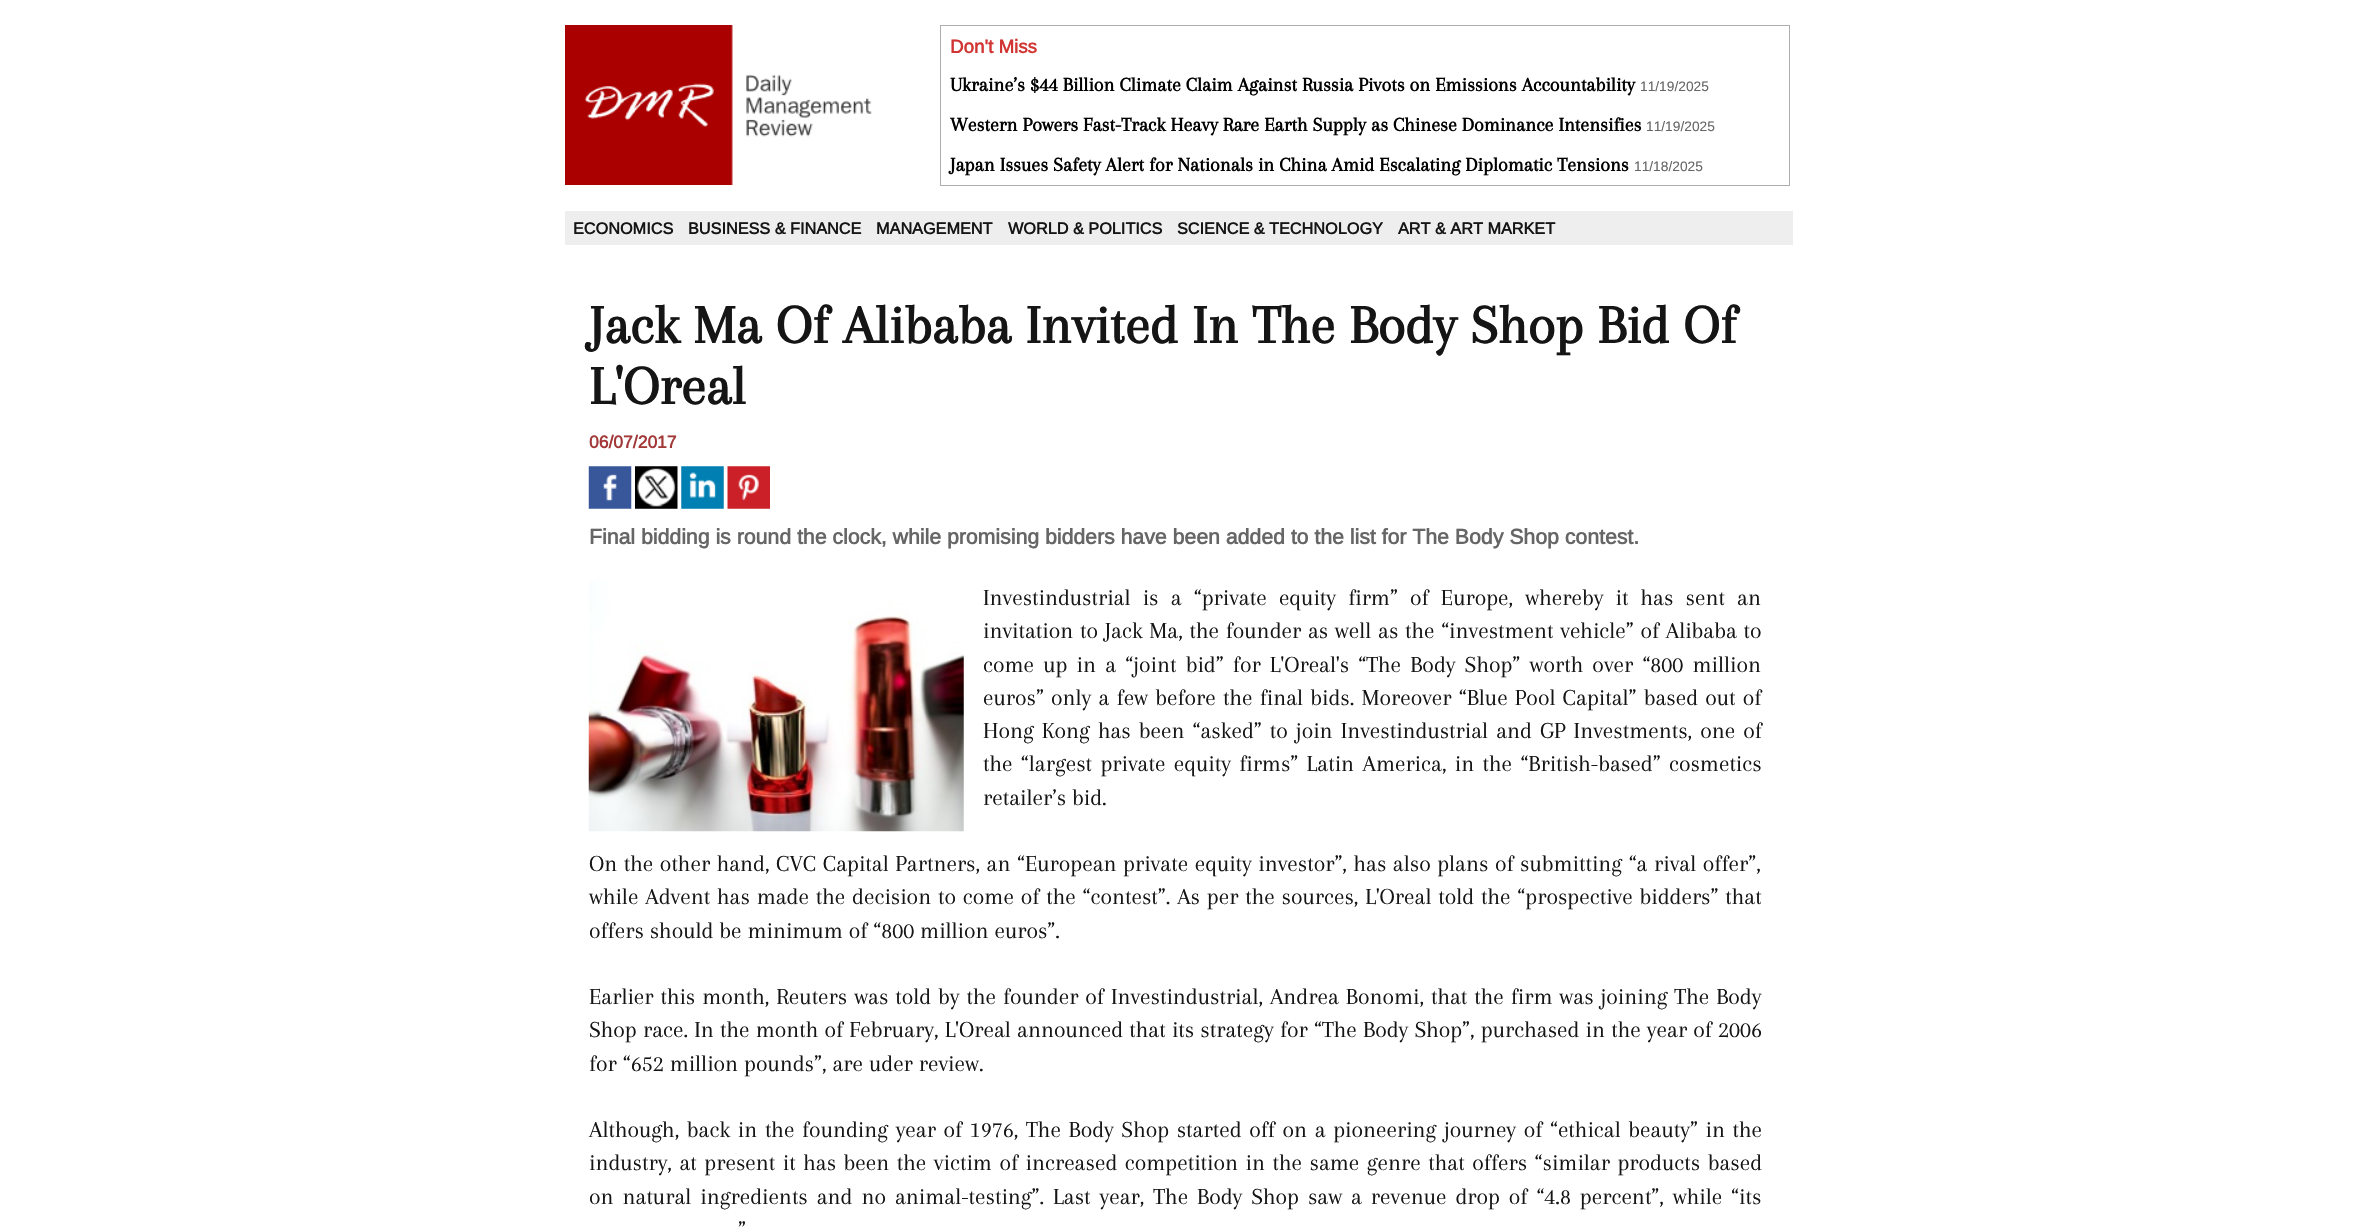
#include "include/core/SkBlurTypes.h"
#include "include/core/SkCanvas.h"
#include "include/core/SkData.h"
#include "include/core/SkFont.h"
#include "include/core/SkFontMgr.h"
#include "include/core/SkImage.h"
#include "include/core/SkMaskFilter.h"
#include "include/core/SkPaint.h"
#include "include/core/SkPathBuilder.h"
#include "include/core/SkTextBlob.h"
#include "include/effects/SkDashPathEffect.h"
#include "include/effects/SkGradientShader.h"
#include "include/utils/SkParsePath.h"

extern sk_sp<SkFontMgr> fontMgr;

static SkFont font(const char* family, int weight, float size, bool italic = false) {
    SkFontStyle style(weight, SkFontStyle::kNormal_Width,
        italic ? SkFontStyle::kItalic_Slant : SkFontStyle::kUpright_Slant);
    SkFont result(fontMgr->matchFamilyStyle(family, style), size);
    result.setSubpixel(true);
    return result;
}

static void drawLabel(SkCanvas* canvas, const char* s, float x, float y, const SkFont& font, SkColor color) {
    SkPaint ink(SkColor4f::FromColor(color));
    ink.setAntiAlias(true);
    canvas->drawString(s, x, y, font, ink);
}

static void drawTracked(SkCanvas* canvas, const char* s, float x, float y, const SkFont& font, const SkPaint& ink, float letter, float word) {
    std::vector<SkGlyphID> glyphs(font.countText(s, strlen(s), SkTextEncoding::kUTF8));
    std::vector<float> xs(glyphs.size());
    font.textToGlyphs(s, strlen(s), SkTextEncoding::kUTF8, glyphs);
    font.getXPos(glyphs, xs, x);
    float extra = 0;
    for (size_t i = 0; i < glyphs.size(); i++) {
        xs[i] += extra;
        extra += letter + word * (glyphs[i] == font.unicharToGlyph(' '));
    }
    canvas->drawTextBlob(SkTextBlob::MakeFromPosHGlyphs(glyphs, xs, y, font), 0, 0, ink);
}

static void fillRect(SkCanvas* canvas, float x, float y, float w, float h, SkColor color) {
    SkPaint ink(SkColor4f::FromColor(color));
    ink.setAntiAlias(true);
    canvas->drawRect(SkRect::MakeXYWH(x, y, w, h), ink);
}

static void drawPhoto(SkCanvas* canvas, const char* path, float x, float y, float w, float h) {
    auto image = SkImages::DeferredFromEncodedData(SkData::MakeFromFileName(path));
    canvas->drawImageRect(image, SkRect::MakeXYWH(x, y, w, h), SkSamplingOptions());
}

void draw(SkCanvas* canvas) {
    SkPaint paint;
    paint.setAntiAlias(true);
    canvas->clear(0xFFFFFFFF);
    drawPhoto(canvas, "assets/img1.png", 565, 25, 307, 160);
    paint.setStroke(true);
    paint.setStrokeWidth(1);
    paint.setColor(0xFFADADAD);
    canvas->drawRect(SkRect::MakeXYWH(940.5f, 25.5f, 849, 160), paint);
    SkFont font1 = font("Arimo", 700, 18.75f);
    drawLabel(canvas, "Don't Miss", 950, 53, font1, 0xFFD13532);
    SkFont font2 = font("Arapey", 700, 20);
    drawLabel(canvas, "Ukraine’s $44 Billion Climate Claim Against Russia Pivots on Emissions Accountability", 950, 91, font2, 0xFF000000);
    SkFont font3 = font("Liberation Sans", 400, 13.75f);
    drawLabel(canvas, "11/19/2025", 1640, 91, font3, 0xFF666666);
    drawLabel(canvas, "Western Powers Fast-Track Heavy Rare Earth Supply as Chinese Dominance Intensifies", 950, 131, font2, 0xFF000000);
    drawLabel(canvas, "11/19/2025", 1646, 131, font3, 0xFF666666);
    drawLabel(canvas, "Japan Issues Safety Alert for Nationals in China Amid Escalating Diplomatic Tensions", 950, 171, font2, 0xFF000000);
    drawLabel(canvas, "11/18/2025", 1634, 171, font3, 0xFF666666);
    fillRect(canvas, 565, 211, 1228, 34, 0xFFEEEEEE);
    SkFont font4 = font("Arimo", 700, 16.25f);
    drawLabel(canvas, "ECONOMICS", 573, 234, font4, 0xFF151515);
    drawLabel(canvas, "BUSINESS & FINANCE", 688, 234, font4, 0xFF151515);
    drawLabel(canvas, "MANAGEMENT", 876, 234, font4, 0xFF151515);
    drawLabel(canvas, "WORLD & POLITICS", 1008, 234, font4, 0xFF151515);
    drawLabel(canvas, "SCIENCE & TECHNOLOGY", 1177, 234, font4, 0xFF151515);
    drawLabel(canvas, "ART & ART MARKET", 1398, 234, font4, 0xFF151515);
    SkFont font5 = font("Arapey", 700, 56.25f);
    drawLabel(canvas, "Jack Ma Of Alibaba Invited In The Body Shop Bid Of", 589, 343, font5, 0xFF151515);
    drawLabel(canvas, "L'Oreal", 589, 404, font5, 0xFF151515);
    SkFont font6 = font("Arimo", 700, 17.5f);
    drawLabel(canvas, "06/07/2017", 589, 448, font6, 0xFFA33838);
    drawPhoto(canvas, "assets/img2.png", 588, 466, 44, 43);
    drawPhoto(canvas, "assets/img3.png", 635, 466, 43, 43);
    drawPhoto(canvas, "assets/img4.png", 681, 466, 43, 43);
    drawPhoto(canvas, "assets/img5.png", 727, 466, 43, 43);
    SkFont font7 = font("Arimo", 700, 21.25f);
    drawLabel(canvas, "Final bidding is round the clock, while promising bidders have been added to the list for The Body Shop contest.", 589, 544, font7, 0xFF666666);
    drawPhoto(canvas, "assets/img6.png", 588, 581, 376, 251);
    SkFont font8 = font("Arapey", 400, 23.75f);
    paint.setStroke(false);
    paint.setColor(0xFF151515);
    drawTracked(canvas, "Investindustrial is a “private equity firm” of Europe, whereby it has sent an", 983, 605, font8, paint, 0, 6.25f);
    drawTracked(canvas, "invitation to Jack Ma, the founder as well as the “investment vehicle” of Alibaba to", 983, 638, font8, paint, 0, 0.75f);
    drawTracked(canvas, "come up in a “joint bid” for L'Oreal's “The Body Shop” worth over “800 million", 983, 672, font8, paint, 0, 3.25f);
    drawTracked(canvas, "euros” only a few before the final bids. Moreover “Blue Pool Capital” based out of", 983, 705, font8, paint, 0, 1.25f);
    drawTracked(canvas, "Hong Kong has been “asked” to join Investindustrial and GP Investments, one of", 983, 738, font8, paint, 0, 2.1f);
    drawTracked(canvas, "the “largest private equity firms” Latin America, in the “British-based” cosmetics", 983, 771, font8, paint, 0, 2.4f);
    drawLabel(canvas, "retailer’s bid.", 983, 805, font8, 0xFF151515);
    drawTracked(canvas, "On the other hand, CVC Capital Partners, an “European private equity investor”, has also plans of submitting “a rival offer”,", 589, 871, font8, paint, 0, 0.6f);
    drawTracked(canvas, "while Advent has made the decision to come of the “contest”. As per the sources, L'Oreal told the “prospective bidders” that", 589, 904, font8, paint, 0, 0.9f);
    drawLabel(canvas, "offers should be minimum of “800 million euros”.", 589, 938, font8, 0xFF151515);
    drawTracked(canvas, "Earlier this month, Reuters was told by the founder of Investindustrial, Andrea Bonomi, that the firm was joining The Body", 589, 1004, font8, paint, 0, 1);
    drawTracked(canvas, "Shop race. In the month of February, L'Oreal announced that its strategy for “The Body Shop”, purchased in the year of 2006", 589, 1037, font8, paint, 0, 0.25f);
    drawLabel(canvas, "for “652 million pounds”, are uder review.", 589, 1071, font8, 0xFF151515);
    drawTracked(canvas, "Although, back in the founding year of 1976, The Body Shop started off on a pioneering journey of “ethical beauty” in the", 589, 1137, font8, paint, 0, 1.7f);
    drawTracked(canvas, "industry, at present it has been the victim of increased competition in the same genre that offers “similar products based", 589, 1170, font8, paint, 0, 1.6f);
    drawTracked(canvas, "on natural ingredients and no animal-testing”. Last year, The Body Shop saw a revenue drop of “4.8 percent”, while “its", 589, 1204, font8, paint, 0, 3);
    drawLabel(canvas, "”", 738, 1237, font8, 0xFF151515);
}
